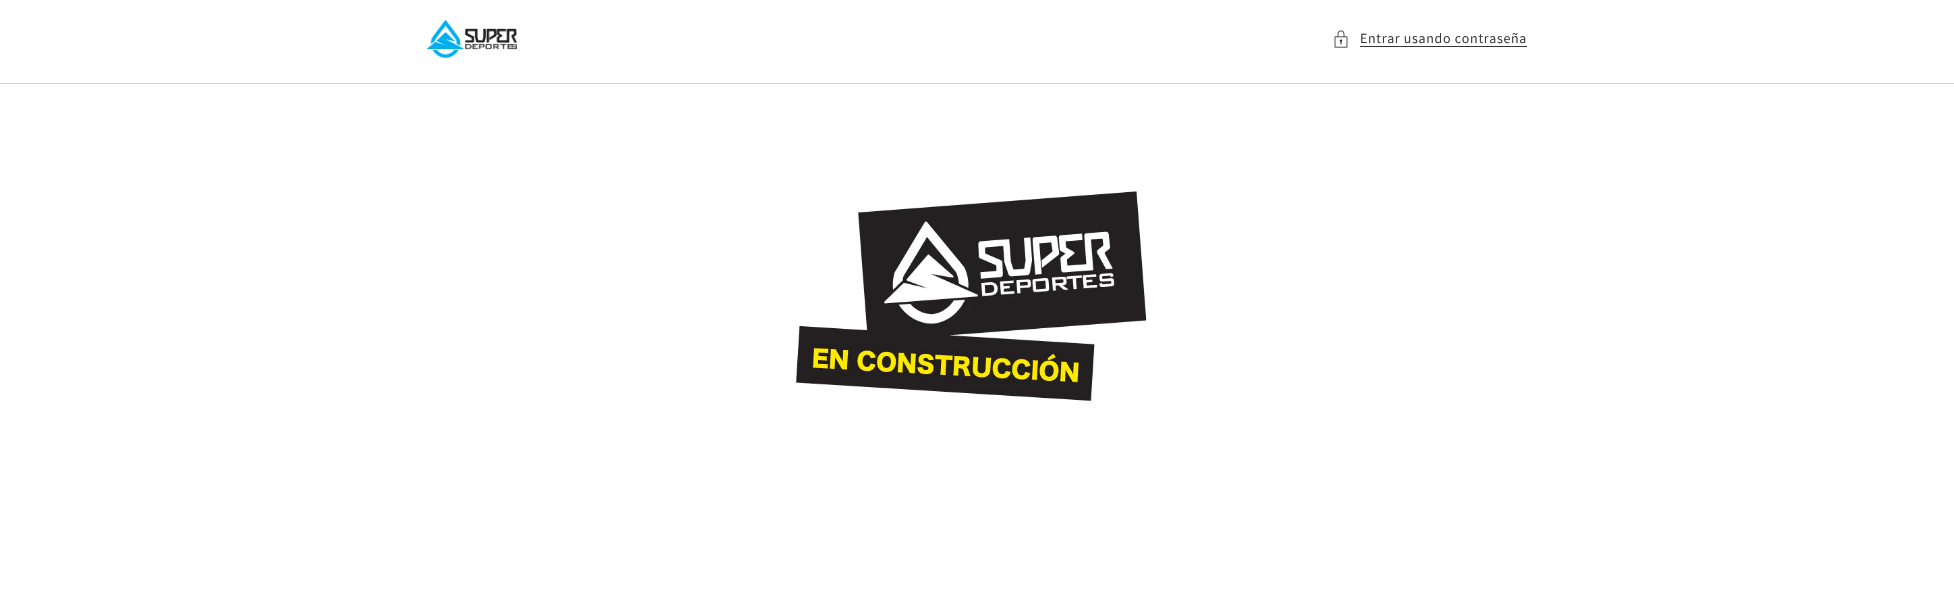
#include "include/core/SkBlurTypes.h"
#include "include/core/SkCanvas.h"
#include "include/core/SkData.h"
#include "include/core/SkFont.h"
#include "include/core/SkFontMgr.h"
#include "include/core/SkImage.h"
#include "include/core/SkMaskFilter.h"
#include "include/core/SkPaint.h"
#include "include/core/SkPathBuilder.h"
#include "include/core/SkTextBlob.h"
#include "include/effects/SkDashPathEffect.h"
#include "include/effects/SkGradientShader.h"
#include "include/utils/SkParsePath.h"

extern sk_sp<SkFontMgr> fontMgr;

static SkFont font(const char* family, int weight, float size, bool italic = false) {
    SkFontStyle style(weight, SkFontStyle::kNormal_Width,
        italic ? SkFontStyle::kItalic_Slant : SkFontStyle::kUpright_Slant);
    SkFont result(fontMgr->matchFamilyStyle(family, style), size);
    result.setSubpixel(true);
    return result;
}

static void drawTracked(SkCanvas* canvas, const char* s, float x, float y, const SkFont& font, const SkPaint& ink, float letter, float word) {
    std::vector<SkGlyphID> glyphs(font.countText(s, strlen(s), SkTextEncoding::kUTF8));
    std::vector<float> xs(glyphs.size());
    font.textToGlyphs(s, strlen(s), SkTextEncoding::kUTF8, glyphs);
    font.getXPos(glyphs, xs, x);
    float extra = 0;
    for (size_t i = 0; i < glyphs.size(); i++) {
        xs[i] += extra;
        extra += letter + word * (glyphs[i] == font.unicharToGlyph(' '));
    }
    canvas->drawTextBlob(SkTextBlob::MakeFromPosHGlyphs(glyphs, xs, y, font), 0, 0, ink);
}

static void fillRect(SkCanvas* canvas, float x, float y, float w, float h, SkColor color) {
    SkPaint ink(SkColor4f::FromColor(color));
    ink.setAntiAlias(true);
    canvas->drawRect(SkRect::MakeXYWH(x, y, w, h), ink);
}

static void drawPhoto(SkCanvas* canvas, const char* path, float x, float y, float w, float h) {
    auto image = SkImages::DeferredFromEncodedData(SkData::MakeFromFileName(path));
    canvas->drawImageRect(image, SkRect::MakeXYWH(x, y, w, h), SkSamplingOptions());
}

void draw(SkCanvas* canvas) {
    SkPaint paint;
    paint.setAntiAlias(true);
    canvas->clear(0xFFFFFFFF);
    drawPhoto(canvas, "assets/img1.png", 427, 20, 90, 38);
    drawPhoto(canvas, "assets/img2.png", 1334, 30, 14, 18);
    SkFont font1 = font("Assistant", 400, 14);
    paint.setColor(0xFF363636);
    drawTracked(canvas, "Entrar usando contraseña", 1360, 43, font1, paint, 0.7f, 0);
    fillRect(canvas, 1360, 46, 167, 1, 0xFF363636);
    fillRect(canvas, 0, 83, 1954, 1, 0xFFD0D0D0);
    drawPhoto(canvas, "assets/img3.png", 796, 191, 351, 211);
}
